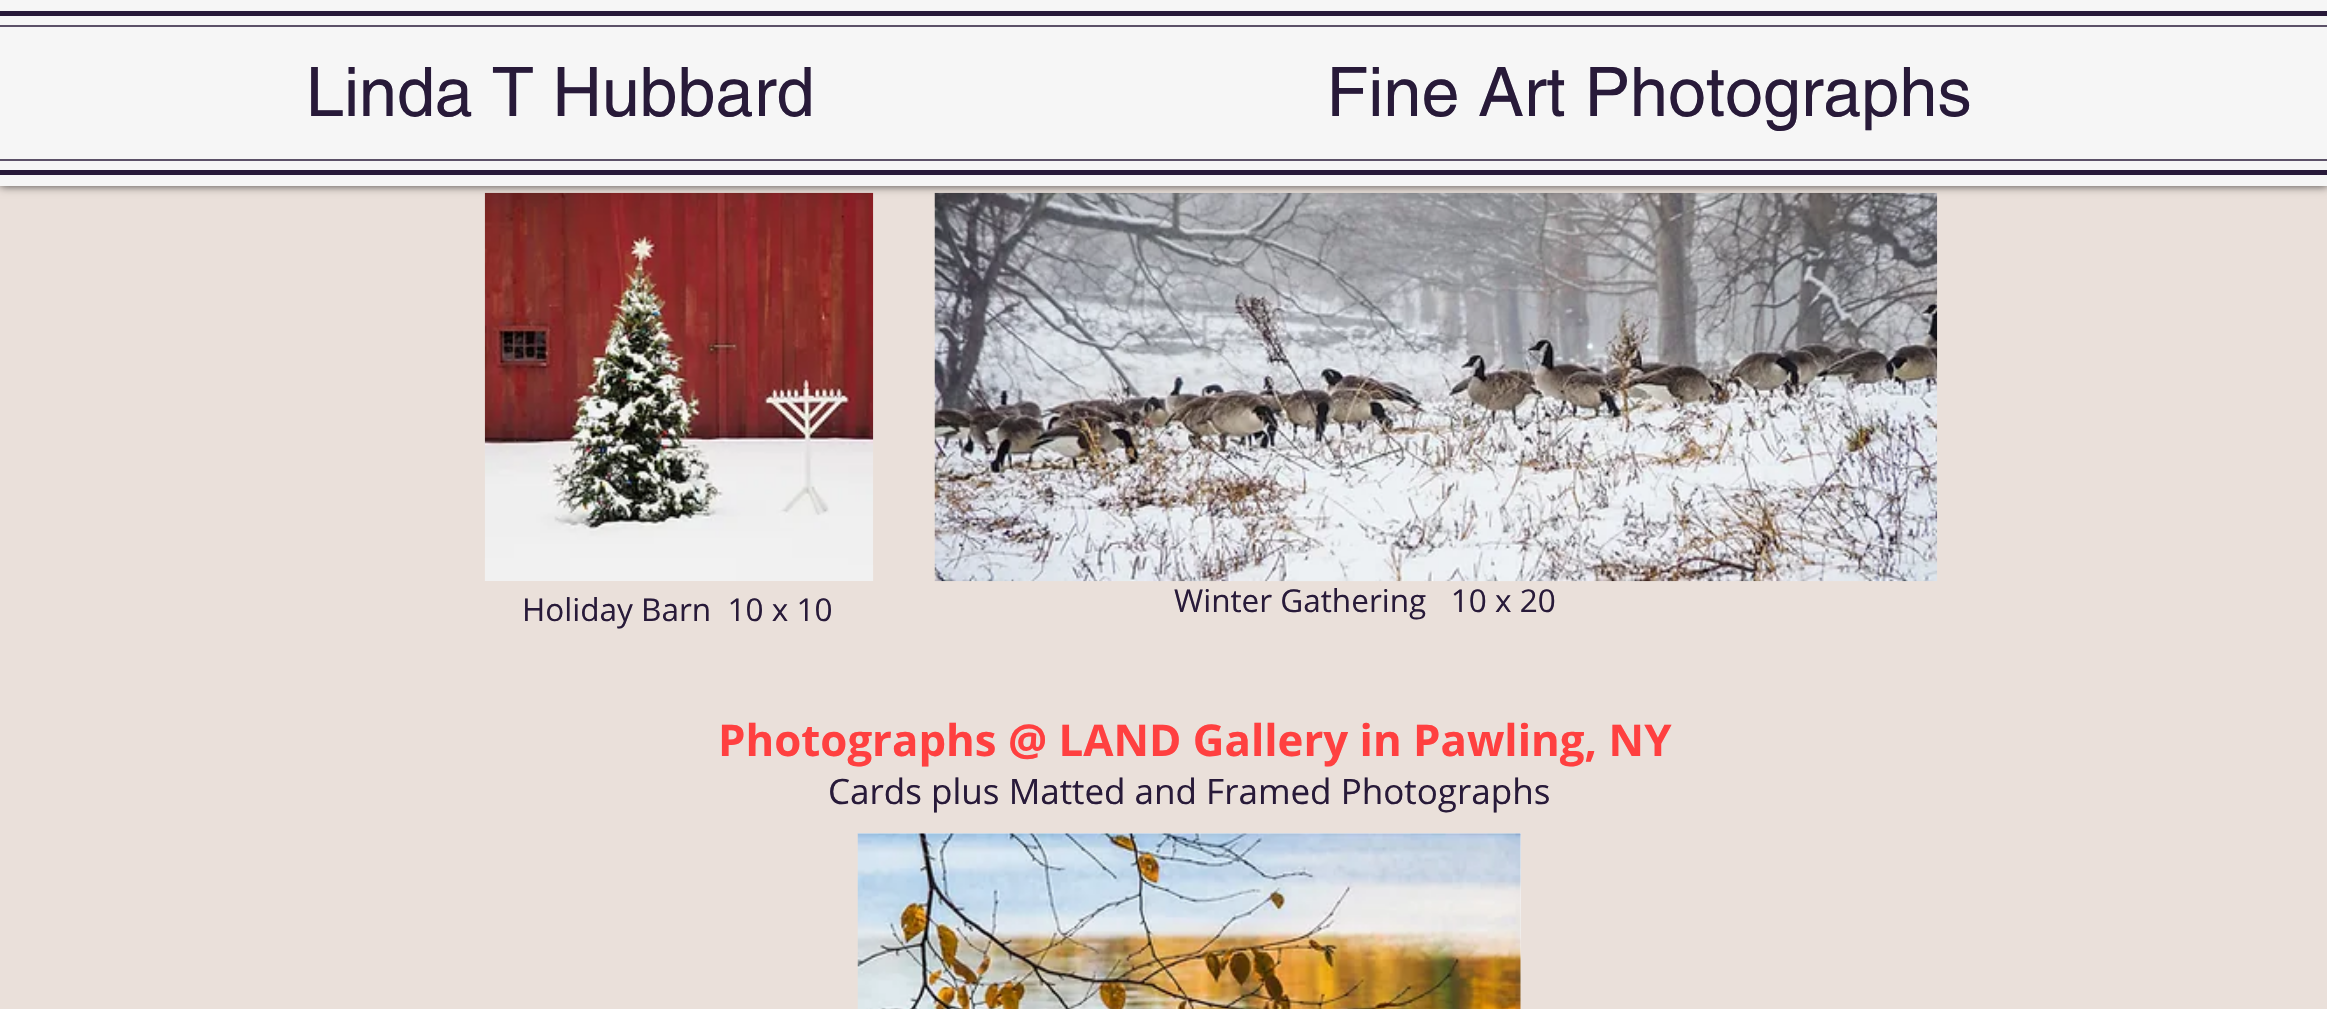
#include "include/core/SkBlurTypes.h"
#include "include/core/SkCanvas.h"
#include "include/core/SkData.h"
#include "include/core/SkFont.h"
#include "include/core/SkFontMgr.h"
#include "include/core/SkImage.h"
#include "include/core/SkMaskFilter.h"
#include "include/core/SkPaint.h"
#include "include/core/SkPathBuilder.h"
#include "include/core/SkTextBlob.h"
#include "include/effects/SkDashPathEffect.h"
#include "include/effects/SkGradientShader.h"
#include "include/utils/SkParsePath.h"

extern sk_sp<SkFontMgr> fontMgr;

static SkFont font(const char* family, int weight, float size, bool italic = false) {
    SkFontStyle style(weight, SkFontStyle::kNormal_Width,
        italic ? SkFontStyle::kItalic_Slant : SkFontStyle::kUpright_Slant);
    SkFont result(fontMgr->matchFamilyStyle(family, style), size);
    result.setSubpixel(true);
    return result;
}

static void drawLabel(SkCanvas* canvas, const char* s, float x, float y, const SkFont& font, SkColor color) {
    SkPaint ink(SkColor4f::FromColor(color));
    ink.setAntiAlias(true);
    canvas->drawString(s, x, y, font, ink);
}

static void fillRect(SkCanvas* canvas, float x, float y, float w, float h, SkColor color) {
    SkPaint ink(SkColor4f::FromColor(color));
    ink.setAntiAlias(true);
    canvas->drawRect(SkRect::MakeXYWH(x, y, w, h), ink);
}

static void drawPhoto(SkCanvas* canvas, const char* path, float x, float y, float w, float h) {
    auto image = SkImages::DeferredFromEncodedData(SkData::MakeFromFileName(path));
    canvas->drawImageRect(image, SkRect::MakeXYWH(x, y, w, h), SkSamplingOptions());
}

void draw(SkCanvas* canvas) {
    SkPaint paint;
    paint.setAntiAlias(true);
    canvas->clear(0xFFEAE0DA);
    drawPhoto(canvas, "assets/img1.png", 484, 192, 390, 389);
    drawPhoto(canvas, "assets/img2.png", 934, 192, 1004, 390);
    paint.setColor(0xB3000000);
    paint.setMaskFilter(SkMaskFilter::MakeBlur(kNormal_SkBlurStyle, 4.5f));
    canvas->drawRect(SkRect::MakeXYWH(0, 0, 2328, 186), paint);
    paint.setMaskFilter(nullptr);
    fillRect(canvas, 0, 0, 2327, 186, 0xFFF6F6F6);
    fillRect(canvas, 0, 11, 2327, 5, 0xFF281A39);
    fillRect(canvas, 0, 170, 2327, 5, 0xFF281A39);
    fillRect(canvas, 0, 25, 2327, 2, 0xFF5C5168);
    fillRect(canvas, 0, 159, 2327, 2, 0xFF5C5168);
    SkFont font1 = font("helvetica", 400, 68.25f);
    drawLabel(canvas, "Linda T Hubbard                           Fine Art Photographs", 306, 116, font1, 0xFF281A39);
    SkFont font2 = font("Open Sans", 400, 31.5f);
    drawLabel(canvas, "Holiday Barn  10 x 10", 522, 621, font2, 0xFF281A39);
    drawLabel(canvas, "Winter Gathering   10 x 20", 1174, 612, font2, 0xFF281A39);
    SkFont font3 = font("Open Sans", 700, 43.75f);
    drawLabel(canvas, "Photographs @ LAND Gallery in Pawling, NY", 718, 756, font3, 0xFFFF4040);
    SkFont font4 = font("Open Sans", 400, 35);
    drawLabel(canvas, "Cards plus Matted and Framed Photographs", 828, 804, font4, 0xFF281A39);
    fillRect(canvas, 858, 833, 663, 176, 0xFFF6F6F6);
    drawPhoto(canvas, "assets/img3.png", 857, 833, 664, 176);
}
